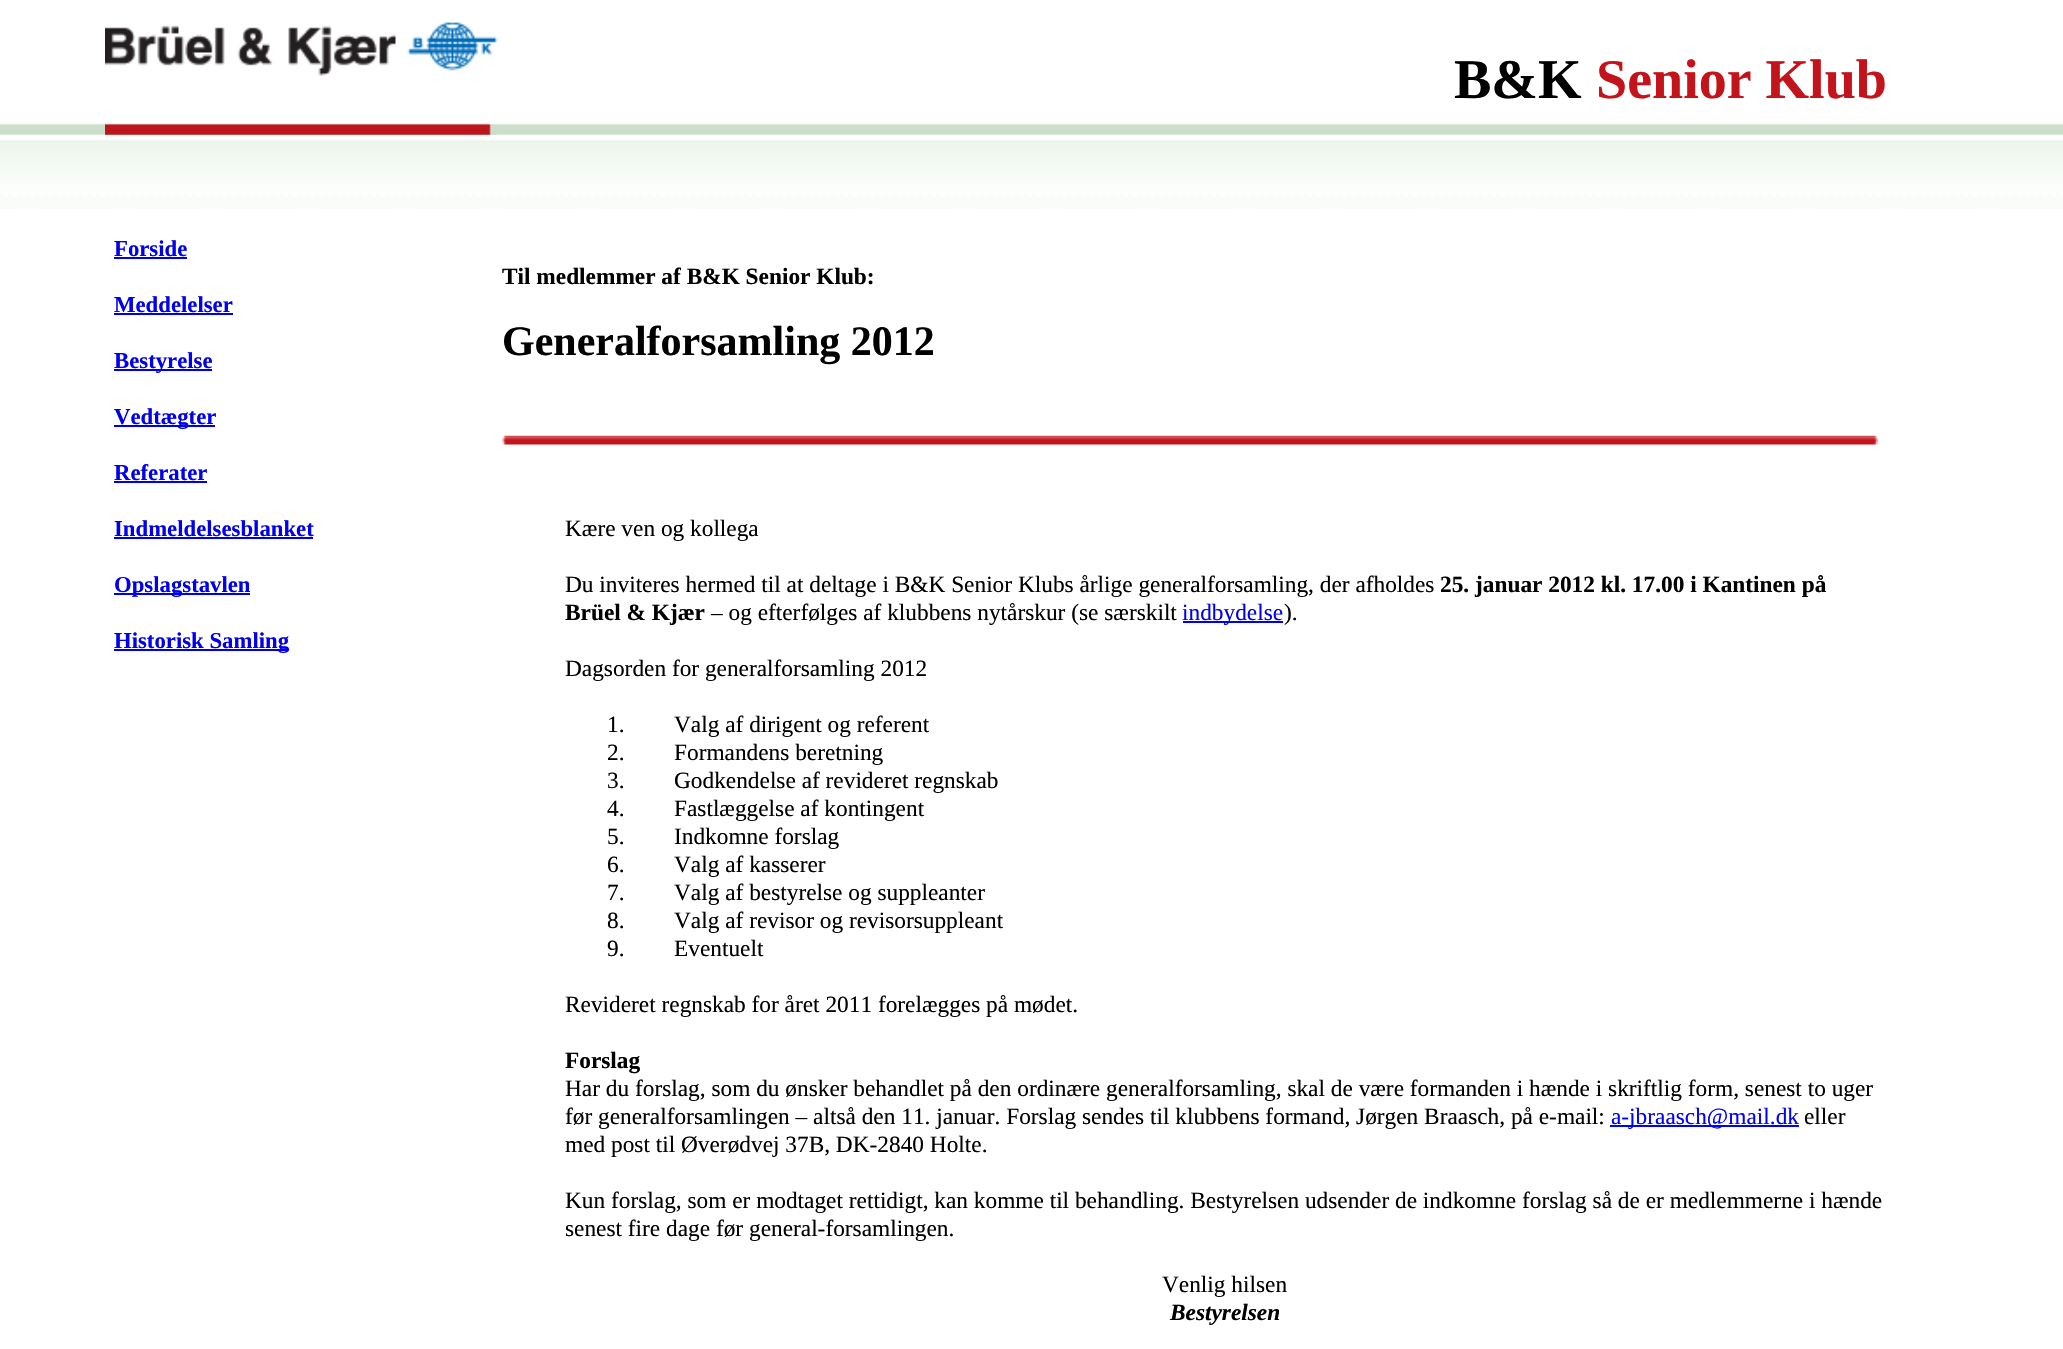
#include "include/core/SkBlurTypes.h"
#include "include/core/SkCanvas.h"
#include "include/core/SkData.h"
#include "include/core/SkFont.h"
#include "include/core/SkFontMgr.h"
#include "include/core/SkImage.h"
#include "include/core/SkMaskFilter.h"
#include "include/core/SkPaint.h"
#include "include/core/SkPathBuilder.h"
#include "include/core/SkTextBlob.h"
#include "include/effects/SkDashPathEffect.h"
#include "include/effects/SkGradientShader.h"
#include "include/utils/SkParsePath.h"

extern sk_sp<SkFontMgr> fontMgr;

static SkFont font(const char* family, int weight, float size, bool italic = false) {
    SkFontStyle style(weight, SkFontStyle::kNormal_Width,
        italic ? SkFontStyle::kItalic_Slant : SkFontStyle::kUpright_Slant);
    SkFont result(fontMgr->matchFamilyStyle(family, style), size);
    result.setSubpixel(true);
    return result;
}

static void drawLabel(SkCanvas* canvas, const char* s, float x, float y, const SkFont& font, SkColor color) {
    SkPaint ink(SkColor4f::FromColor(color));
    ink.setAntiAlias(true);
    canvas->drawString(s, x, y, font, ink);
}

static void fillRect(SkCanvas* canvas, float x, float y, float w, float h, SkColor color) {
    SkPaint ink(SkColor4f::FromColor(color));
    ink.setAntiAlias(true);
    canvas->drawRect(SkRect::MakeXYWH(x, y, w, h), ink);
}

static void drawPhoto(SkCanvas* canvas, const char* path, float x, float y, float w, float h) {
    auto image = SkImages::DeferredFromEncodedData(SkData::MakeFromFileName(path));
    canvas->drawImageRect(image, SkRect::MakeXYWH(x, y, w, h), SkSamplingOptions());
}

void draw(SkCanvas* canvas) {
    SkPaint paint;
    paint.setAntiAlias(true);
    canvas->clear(0xFFFFFFFF);
    drawPhoto(canvas, "assets/img1.png", 0, 123, 2063, 86);
    drawPhoto(canvas, "assets/img2.png", 105, 22, 392, 113);
    SkFont font1 = font("Liberation Serif", 700, 56);
    drawLabel(canvas, "B&K", 1454, 98, font1, 0xFF000000);
    drawLabel(canvas, "Senior Klub", 1596, 98, font1, 0xFFC4141B);
    SkFont font2 = font("Liberation Serif", 700, 22.75f);
    drawLabel(canvas, "Forside", 114, 256, font2, 0xFF0000EE);
    fillRect(canvas, 114, 257, 73, 2, 0xFF0000EE);
    drawLabel(canvas, "Meddelelser", 114, 312, font2, 0xFF0000EE);
    fillRect(canvas, 114, 313, 119, 2, 0xFF0000EE);
    fillRect(canvas, 114, 369, 98, 2, 0xFF0000EE);
    drawLabel(canvas, "Bestyrelse", 114, 368, font2, 0xFF0000EE);
    fillRect(canvas, 114, 425, 101, 2, 0xFF0000EE);
    drawLabel(canvas, "Vedtægter", 114, 424, font2, 0xFF0000EE);
    drawLabel(canvas, "Referater", 114, 480, font2, 0xFF0000EE);
    fillRect(canvas, 114, 481, 93, 2, 0xFF0000EE);
    drawLabel(canvas, "Indmeldelsesblanket", 114, 536, font2, 0xFF0000EE);
    fillRect(canvas, 114, 537, 199, 2, 0xFF0000EE);
    fillRect(canvas, 114, 593, 136, 2, 0xFF0000EE);
    drawLabel(canvas, "Opslagstavlen", 114, 592, font2, 0xFF0000EE);
    fillRect(canvas, 114, 649, 175, 2, 0xFF0000EE);
    drawLabel(canvas, "Historisk Samling", 114, 648, font2, 0xFF0000EE);
    SkFont font3 = font("Liberation Serif", 700, 23.33f);
    drawLabel(canvas, "Til medlemmer af B&K Senior Klub:", 502, 284, font3, 0xFF000000);
    SkFont font4 = font("Liberation Serif", 700, 42);
    drawLabel(canvas, "Generalforsamling 2012", 502, 355, font4, 0xFF000000);
    drawPhoto(canvas, "assets/img3.png", 502, 435, 1376, 10);
    SkFont font5 = font("Liberation Serif", 400, 23.33f);
    drawLabel(canvas, "Kære ven og kollega", 565, 536, font5, 0xFF000000);
    drawLabel(canvas, "Du inviteres hermed til at deltage i B&K Senior Klubs årlige generalforsamling, der afholdes", 565, 592, font5, 0xFF000000);
    drawLabel(canvas, "25. januar 2012 kl. 17.00 i Kantinen på", 1440, 592, font3, 0xFF000000);
    drawLabel(canvas, "Brüel & Kjær", 565, 620, font3, 0xFF000000);
    drawLabel(canvas, "– og efterfølges af klubbens nytårskur (se særskilt", 711, 620, font5, 0xFF000000);
    fillRect(canvas, 1183, 621, 100, 2, 0xFF0000EE);
    drawLabel(canvas, "indbydelse", 1182, 620, font5, 0xFF0000EE);
    drawLabel(canvas, ").", 1284, 620, font5, 0xFF000000);
    drawLabel(canvas, "Dagsorden for generalforsamling 2012", 565, 676, font5, 0xFF000000);
    drawLabel(canvas, "1.", 607, 732, font5, 0xFF000000);
    drawLabel(canvas, "Valg af dirigent og referent", 674, 732, font5, 0xFF000000);
    drawLabel(canvas, "2.", 607, 760, font5, 0xFF000000);
    drawLabel(canvas, "Formandens beretning", 674, 760, font5, 0xFF000000);
    drawLabel(canvas, "3.", 607, 788, font5, 0xFF000000);
    drawLabel(canvas, "Godkendelse af revideret regnskab", 674, 788, font5, 0xFF000000);
    drawLabel(canvas, "4.", 607, 816, font5, 0xFF000000);
    drawLabel(canvas, "Fastlæggelse af kontingent", 674, 816, font5, 0xFF000000);
    drawLabel(canvas, "5.", 607, 844, font5, 0xFF000000);
    drawLabel(canvas, "Indkomne forslag", 674, 844, font5, 0xFF000000);
    drawLabel(canvas, "6.", 607, 872, font5, 0xFF000000);
    drawLabel(canvas, "Valg af kasserer", 674, 872, font5, 0xFF000000);
    drawLabel(canvas, "7.", 607, 900, font5, 0xFF000000);
    drawLabel(canvas, "Valg af bestyrelse og suppleanter", 674, 900, font5, 0xFF000000);
    drawLabel(canvas, "8.", 607, 928, font5, 0xFF000000);
    drawLabel(canvas, "Valg af revisor og revisorsuppleant", 674, 928, font5, 0xFF000000);
    drawLabel(canvas, "9.", 607, 956, font5, 0xFF000000);
    drawLabel(canvas, "Eventuelt", 674, 956, font5, 0xFF000000);
    drawLabel(canvas, "Revideret regnskab for året 2011 forelægges på mødet.", 565, 1012, font5, 0xFF000000);
    drawLabel(canvas, "Forslag", 565, 1068, font3, 0xFF000000);
    drawLabel(canvas, "Har du forslag, som du ønsker behandlet på den ordinære generalforsamling, skal de være formanden i hænde i skriftlig form, senest to uger", 565, 1096, font5, 0xFF000000);
    drawLabel(canvas, "før generalforsamlingen – altså den 11. januar. Forslag sendes til klubbens formand, Jørgen Braasch, på e-mail:", 565, 1124, font5, 0xFF000000);
    fillRect(canvas, 1610, 1125, 189, 2, 0xFF0000FF);
    drawLabel(canvas, "a-jbraasch@mail.dk", 1611, 1124, font5, 0xFF0000FF);
    drawLabel(canvas, "eller", 1804, 1124, font5, 0xFF000000);
    drawLabel(canvas, "med post til Øverødvej 37B, DK-2840 Holte.", 565, 1152, font5, 0xFF000000);
    drawLabel(canvas, "Kun forslag, som er modtaget rettidigt, kan komme til behandling. Bestyrelsen udsender de indkomne forslag så de er medlemmerne i hænde", 565, 1208, font5, 0xFF000000);
    drawLabel(canvas, "senest fire dage før general-forsamlingen.", 565, 1236, font5, 0xFF000000);
    drawLabel(canvas, "Venlig hilsen", 1162, 1292, font5, 0xFF000000);
    SkFont font6 = font("Liberation Serif", 700, 23.33f, true);
    drawLabel(canvas, "Bestyrelsen", 1170, 1320, font6, 0xFF000000);
}
